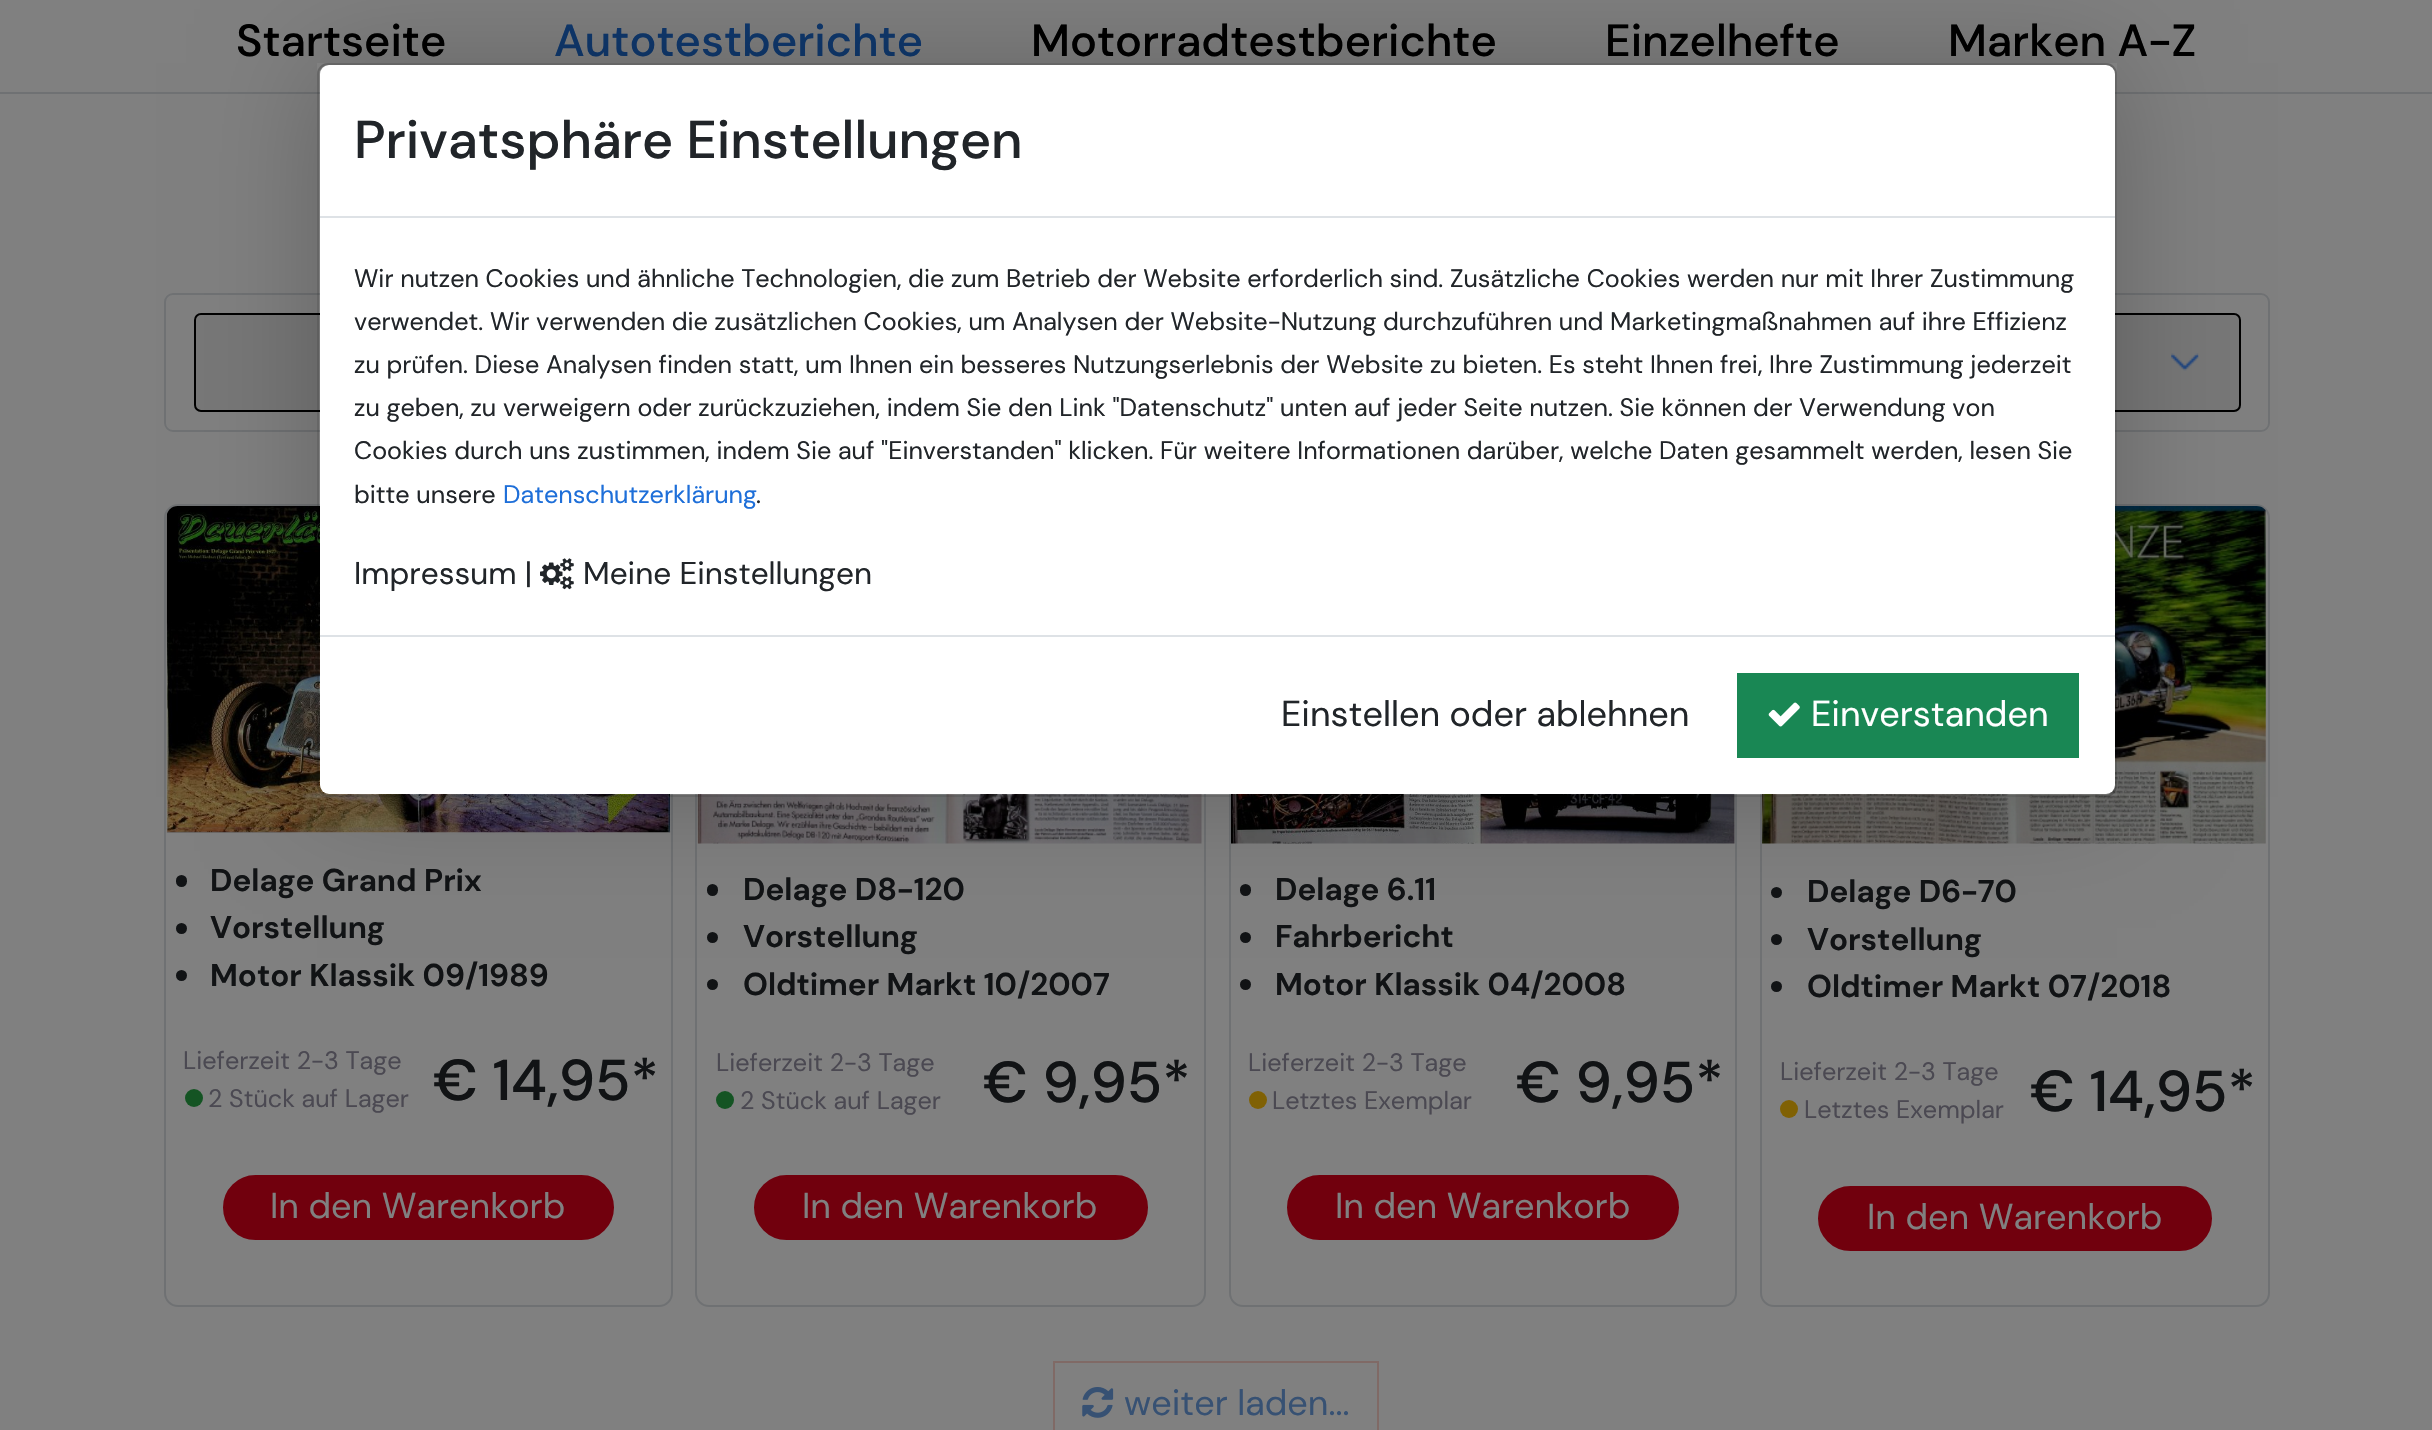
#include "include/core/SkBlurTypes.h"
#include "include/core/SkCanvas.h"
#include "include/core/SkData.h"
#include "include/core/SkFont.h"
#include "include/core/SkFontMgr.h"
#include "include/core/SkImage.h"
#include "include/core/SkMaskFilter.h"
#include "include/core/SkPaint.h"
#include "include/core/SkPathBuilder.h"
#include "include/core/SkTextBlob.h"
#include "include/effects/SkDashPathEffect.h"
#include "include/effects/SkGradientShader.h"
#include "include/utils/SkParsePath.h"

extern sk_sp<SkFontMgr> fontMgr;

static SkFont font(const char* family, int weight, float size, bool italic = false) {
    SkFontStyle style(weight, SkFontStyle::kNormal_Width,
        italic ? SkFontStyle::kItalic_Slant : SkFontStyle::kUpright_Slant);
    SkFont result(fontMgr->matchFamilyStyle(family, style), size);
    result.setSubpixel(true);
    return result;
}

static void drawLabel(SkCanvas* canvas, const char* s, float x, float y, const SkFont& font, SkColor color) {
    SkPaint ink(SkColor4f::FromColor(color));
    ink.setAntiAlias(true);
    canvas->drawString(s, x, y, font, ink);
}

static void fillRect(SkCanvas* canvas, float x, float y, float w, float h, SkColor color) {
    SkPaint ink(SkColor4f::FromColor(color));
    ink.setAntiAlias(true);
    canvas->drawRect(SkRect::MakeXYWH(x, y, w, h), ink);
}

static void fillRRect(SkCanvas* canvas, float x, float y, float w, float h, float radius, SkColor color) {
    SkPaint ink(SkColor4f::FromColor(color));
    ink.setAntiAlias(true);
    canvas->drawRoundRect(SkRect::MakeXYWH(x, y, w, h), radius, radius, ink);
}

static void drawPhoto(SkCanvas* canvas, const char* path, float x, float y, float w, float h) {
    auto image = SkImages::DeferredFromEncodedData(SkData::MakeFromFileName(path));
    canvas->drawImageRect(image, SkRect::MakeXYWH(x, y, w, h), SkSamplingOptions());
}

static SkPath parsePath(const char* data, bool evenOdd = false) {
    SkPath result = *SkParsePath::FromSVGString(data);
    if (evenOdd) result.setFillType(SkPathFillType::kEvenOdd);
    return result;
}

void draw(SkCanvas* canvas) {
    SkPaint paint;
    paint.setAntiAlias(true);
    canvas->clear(0xFF808080);
    fillRect(canvas, 0, 92, 2432, 2, 0xFF6F7173);
    SkFont font1 = font("DM Sans", 500, 45);
    drawLabel(canvas, "Startseite", 236, 56, font1, 0xFF000000);
    drawLabel(canvas, "Autotestberichte", 554, 56, font1, 0xFF0F386D);
    drawLabel(canvas, "Motorradtestberichte", 1031, 56, font1, 0xFF000000);
    drawLabel(canvas, "Einzelhefte", 1605, 56, font1, 0xFF000000);
    drawLabel(canvas, "Marken A-Z", 1948, 56, font1, 0xFF000000);
    paint.setStroke(true);
    paint.setStrokeWidth(2);
    paint.setColor(0xFF6F7173);
    canvas->drawRoundRect(SkRect::MakeXYWH(165, 294, 2104, 137), 8, 8, paint);
    paint.setStroke(false);
    paint.setColor(0xFF777777);
    canvas->drawRoundRect(SkRect::MakeXYWH(195, 314, 994, 97), 6, 6, paint);
    paint.setStroke(true);
    paint.setColor(0xFF000000);
    canvas->drawRoundRect(SkRect::MakeXYWH(195, 314, 994, 97), 6, 6, paint);
    fillRRect(canvas, 1244, 313, 997, 99, 7, 0xFF777777);
    drawPhoto(canvas, "assets/img3.png", 2171, 353, 28, 18);
    canvas->drawRoundRect(SkRect::MakeXYWH(1245, 314, 995, 97), 6, 6, paint);
    paint.setColor(0xFF6F7173);
    canvas->drawRoundRect(SkRect::MakeXYWH(165, 505, 507, 801), 13, 13, paint);
    drawPhoto(canvas, "assets/img4.png", 166, 506, 505, 327);
    fillRRect(canvas, 176, 875, 11, 12, 5.5f, 0xFF111315);
    paint.setStroke(false);
    paint.setColor(0xFF111315);
    canvas->drawCircle(181.5f, 928.5f, 5.5f, paint);
    paint.setStroke(true);
    paint.setColor(0xFF6F7173);
    canvas->drawRoundRect(SkRect::MakeXYWH(696, 505, 509, 801), 13, 13, paint);
    drawPhoto(canvas, "assets/img5.png", 697, 794, 505, 50);
    fillRRect(canvas, 707, 884, 11, 12, 5.5f, 0xFF111315);
    paint.setStroke(false);
    paint.setColor(0xFF111315);
    canvas->drawCircle(712.5f, 937.5f, 5.5f, paint);
    paint.setStroke(true);
    paint.setColor(0xFF6F7173);
    canvas->drawRoundRect(SkRect::MakeXYWH(1230, 505, 506, 801), 13, 13, paint);
    drawPhoto(canvas, "assets/img6.png", 1231, 794, 504, 50);
    fillRRect(canvas, 1240, 884, 11, 12, 5.5f, 0xFF111315);
    paint.setStroke(false);
    paint.setColor(0xFF111315);
    canvas->drawCircle(1245.5f, 937.5f, 5.5f, paint);
    paint.setStroke(true);
    paint.setColor(0xFF6F7173);
    canvas->drawRoundRect(SkRect::MakeXYWH(1761, 505, 508, 801), 13, 13, paint);
    drawPhoto(canvas, "assets/img7.png", 1762, 506, 504, 338);
    paint.setStroke(false);
    paint.setColor(0xFF111315);
    canvas->drawCircle(1776.5f, 892.5f, 5.5f, paint);
    canvas->drawCircle(1776.5f, 939.5f, 5.5f, paint);
    canvas->save();
    canvas->clipPath(parsePath("M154 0H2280V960H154ZM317 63H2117V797H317Z", true), true);
    paint.setColor(0x38000000);
    paint.setMaskFilter(SkMaskFilter::MakeBlur(kNormal_SkBlurStyle, 54));
    canvas->drawRect(SkRect::MakeXYWH(317, 63, 1800, 734), paint);
    paint.setMaskFilter(nullptr);
    canvas->restore();
    fillRRect(canvas, 320, 65, 1795, 729, 9, 0xFFFFFFFF);
    paint.setStroke(true);
    paint.setColor(0x33000000);
    canvas->drawRoundRect(SkRect::MakeXYWH(318, 64, 1798, 732), 10, 10, paint);
    fillRect(canvas, 320, 216, 1795, 2, 0xFFDEE2E6);
    SkFont font2 = font("DM Sans", 500, 53.25f);
    drawLabel(canvas, "Privatsphäre Einstellungen", 354, 158, font2, 0xFF212529);
    SkFont font3 = font("DM Sans", 400, 25.2f);
    drawLabel(canvas, "Wir nutzen Cookies und ähnliche Technologien, die zum Betrieb der Website erforderlich sind. Zusätzliche Cookies werden nur mit Ihrer Zustimmung", 354, 287, font3, 0xFF212529);
    drawLabel(canvas, "verwendet. Wir verwenden die zusätzlichen Cookies, um Analysen der Website-Nutzung durchzuführen und Marketingmaßnahmen auf ihre Effizienz", 354, 330, font3, 0xFF212529);
    drawLabel(canvas, "zu prüfen. Diese Analysen finden statt, um Ihnen ein besseres Nutzungserlebnis der Website zu bieten. Es steht Ihnen frei, Ihre Zustimmung jederzeit", 354, 373, font3, 0xFF212529);
    drawLabel(canvas, "zu geben, zu verweigern oder zurückzuziehen, indem Sie den Link \"Datenschutz\" unten auf jeder Seite nutzen. Sie können der Verwendung von", 354, 416, font3, 0xFF212529);
    drawLabel(canvas, "Cookies durch uns zustimmen, indem Sie auf \"Einverstanden\" klicken. Für weitere Informationen darüber, welche Daten gesammelt werden, lesen Sie", 354, 459, font3, 0xFF212529);
    drawLabel(canvas, "bitte unsere", 354, 503, font3, 0xFF212529);
    drawLabel(canvas, "Datenschutzerklärung", 503, 503, font3, 0xFF1E6FD9);
    drawLabel(canvas, ".", 756, 503, font3, 0xFF212529);
    SkFont font4 = font("DM Sans", 400, 31.5f);
    drawLabel(canvas, "Impressum |", 354, 584, font4, 0xFF212529);
    drawPhoto(canvas, "assets/img1.png", 540, 558, 34, 32);
    drawLabel(canvas, "Meine Einstellungen", 583, 584, font4, 0xFF212529);
    fillRect(canvas, 320, 635, 1795, 2, 0xFFDEE2E6);
    SkFont font5 = font("DM Sans", 400, 36);
    drawLabel(canvas, "Einstellen oder ablehnen", 1281, 726, font5, 0xFF212529);
    fillRect(canvas, 1737, 673, 342, 85, 0xFF198754);
    drawPhoto(canvas, "assets/img2.png", 1768, 702, 32, 25);
    drawLabel(canvas, "Einverstanden", 1811, 726, font5, 0xFFFFFFFF);
    SkFont font6 = font("DM Sans", 700, 31.5f);
    drawLabel(canvas, "Delage Grand Prix", 210, 891, font6, 0xFF111315);
    drawLabel(canvas, "Vorstellung", 210, 938, font6, 0xFF111315);
    paint.setStroke(false);
    paint.setColor(0xFF111315);
    canvas->drawCircle(181.5f, 975.5f, 5.5f, paint);
    drawLabel(canvas, "Motor Klassik 09/1989", 210, 986, font6, 0xFF111315);
    drawLabel(canvas, "Lieferzeit 2-3 Tage", 183, 1069, font3, 0xFF4B4952);
    paint.setColor(0xFF145423);
    canvas->drawCircle(194, 1098, 9, paint);
    drawLabel(canvas, "2 Stück auf Lager", 208, 1107, font3, 0xFF4B4952);
    SkFont font7 = font("DM Sans", 500, 57.5f);
    drawLabel(canvas, "€ 14,95*", 433, 1100, font7, 0xFF111315);
    paint.setColor(0xFF71000D);
    canvas->drawRoundRect(SkRect::MakeXYWH(224, 1176, 389, 63), 31.5f, 31.5f, paint);
    paint.setStroke(true);
    canvas->drawRoundRect(SkRect::MakeXYWH(224, 1176, 389, 63), 31.5f, 31.5f, paint);
    drawLabel(canvas, "In den Warenkorb", 270, 1218, font5, 0xFF808080);
    drawLabel(canvas, "Delage D8-120", 743, 900, font6, 0xFF111315);
    drawLabel(canvas, "Vorstellung", 743, 947, font6, 0xFF111315);
    paint.setStroke(false);
    paint.setColor(0xFF111315);
    canvas->drawCircle(712.5f, 984.5f, 5.5f, paint);
    drawLabel(canvas, "Oldtimer Markt 10/2007", 743, 995, font6, 0xFF111315);
    drawLabel(canvas, "Lieferzeit 2-3 Tage", 716, 1071, font3, 0xFF4B4952);
    paint.setColor(0xFF145423);
    canvas->drawCircle(725, 1100, 9, paint);
    drawLabel(canvas, "2 Stück auf Lager", 740, 1109, font3, 0xFF4B4952);
    drawLabel(canvas, "€ 9,95*", 983, 1102, font7, 0xFF111315);
    paint.setColor(0xFF71000D);
    canvas->drawRoundRect(SkRect::MakeXYWH(755, 1176, 392, 63), 31.5f, 31.5f, paint);
    paint.setStroke(true);
    canvas->drawRoundRect(SkRect::MakeXYWH(755, 1176, 392, 63), 31.5f, 31.5f, paint);
    drawLabel(canvas, "In den Warenkorb", 802, 1218, font5, 0xFF808080);
    drawLabel(canvas, "Delage 6.11", 1275, 900, font6, 0xFF111315);
    drawLabel(canvas, "Fahrbericht", 1275, 947, font6, 0xFF111315);
    paint.setStroke(false);
    paint.setColor(0xFF111315);
    canvas->drawCircle(1245.5f, 984.5f, 5.5f, paint);
    drawLabel(canvas, "Motor Klassik 04/2008", 1275, 995, font6, 0xFF111315);
    drawLabel(canvas, "Lieferzeit 2-3 Tage", 1248, 1071, font3, 0xFF4B4952);
    paint.setColor(0xFF806104);
    canvas->drawCircle(1258, 1100, 9, paint);
    drawLabel(canvas, "Letztes Exemplar", 1272, 1109, font3, 0xFF4B4952);
    drawLabel(canvas, "€ 9,95*", 1516, 1102, font7, 0xFF111315);
    paint.setColor(0xFF71000D);
    canvas->drawRoundRect(SkRect::MakeXYWH(1288, 1176, 390, 63), 31.5f, 31.5f, paint);
    paint.setStroke(true);
    canvas->drawRoundRect(SkRect::MakeXYWH(1288, 1176, 390, 63), 31.5f, 31.5f, paint);
    drawLabel(canvas, "In den Warenkorb", 1335, 1218, font5, 0xFF808080);
    drawLabel(canvas, "Delage D6-70", 1807, 902, font6, 0xFF111315);
    drawLabel(canvas, "Vorstellung", 1807, 950, font6, 0xFF111315);
    paint.setStroke(false);
    paint.setColor(0xFF111315);
    canvas->drawCircle(1776.5f, 986.5f, 5.5f, paint);
    drawLabel(canvas, "Oldtimer Markt 07/2018", 1807, 997, font6, 0xFF111315);
    drawLabel(canvas, "Lieferzeit 2-3 Tage", 1780, 1080, font3, 0xFF4B4952);
    paint.setColor(0xFF806104);
    canvas->drawCircle(1789, 1109, 9, paint);
    drawLabel(canvas, "Letztes Exemplar", 1804, 1118, font3, 0xFF4B4952);
    drawLabel(canvas, "€ 14,95*", 2030, 1111, font7, 0xFF111315);
    paint.setColor(0xFF71000D);
    canvas->drawRoundRect(SkRect::MakeXYWH(1819, 1187, 392, 63), 31.5f, 31.5f, paint);
    paint.setStroke(true);
    canvas->drawRoundRect(SkRect::MakeXYWH(1819, 1187, 392, 63), 31.5f, 31.5f, paint);
    drawLabel(canvas, "In den Warenkorb", 1867, 1229, font5, 0xFF808080);
    paint.setColor(0xFF806A66);
    canvas->drawRect(SkRect::MakeXYWH(1054, 1362, 324, 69), paint);
    drawPhoto(canvas, "assets/img8.png", 1082, 1387, 32, 31);
    drawLabel(canvas, "weiter laden...", 1124, 1415, font5, 0xFF375173);
}
